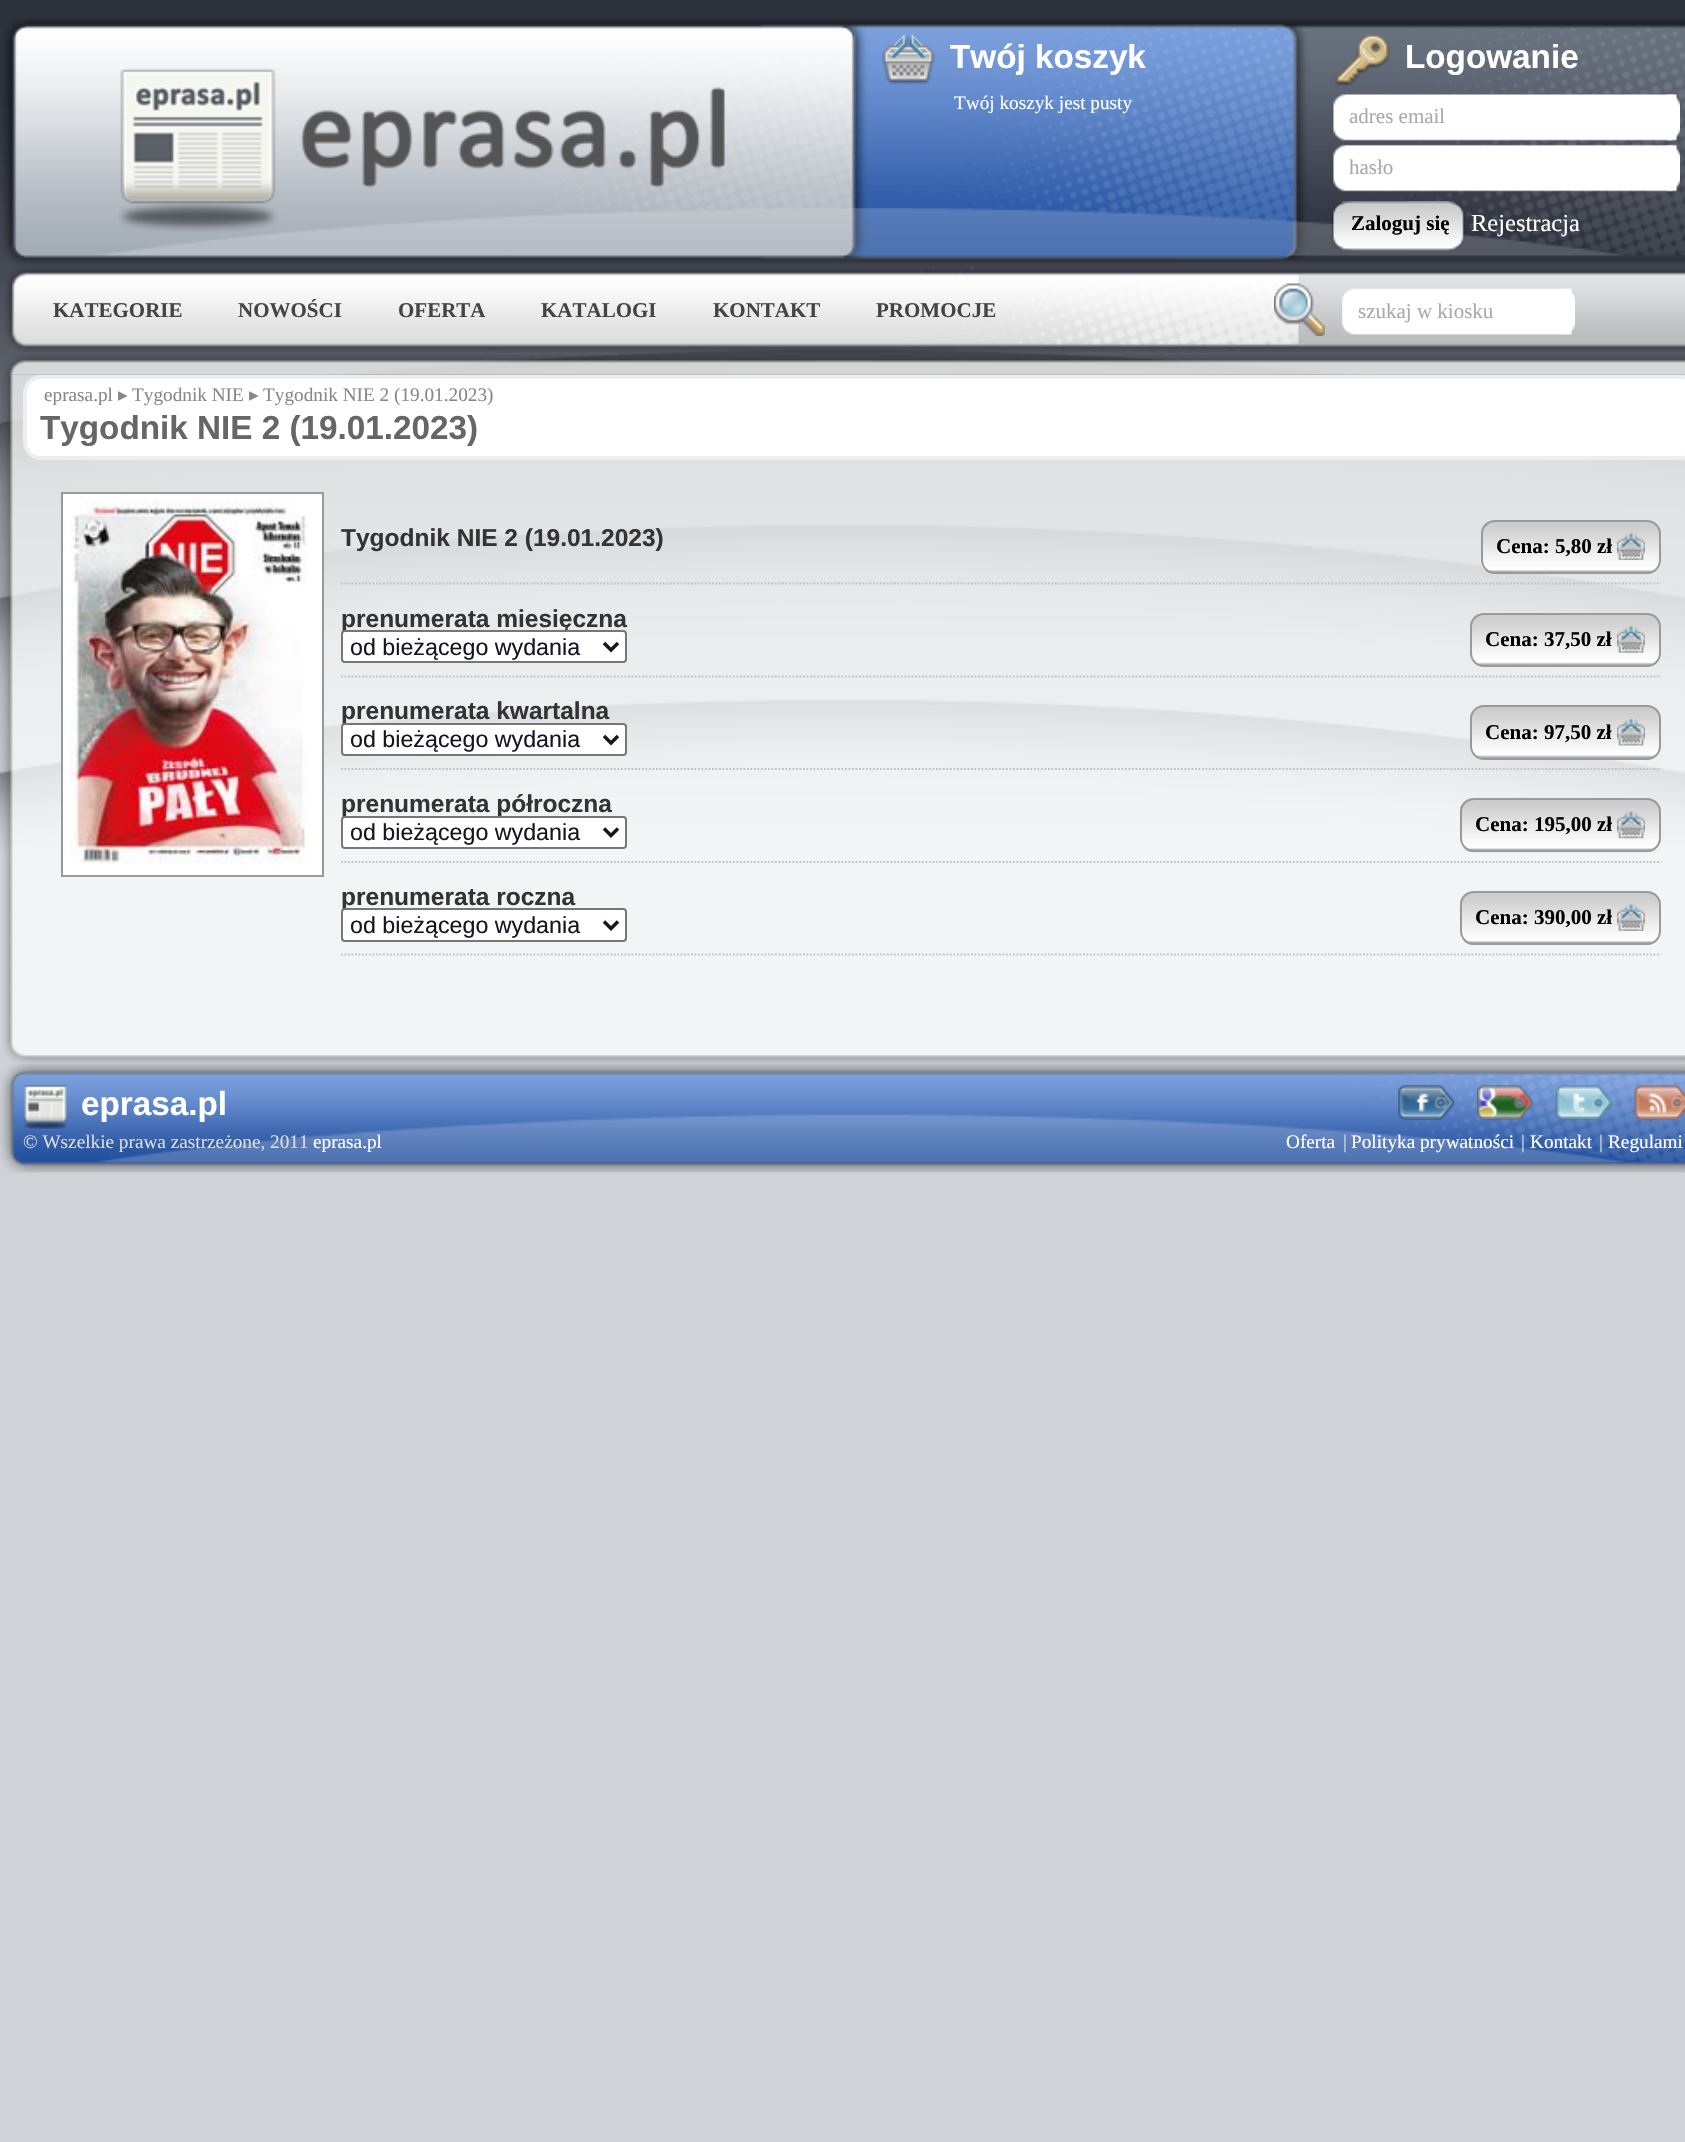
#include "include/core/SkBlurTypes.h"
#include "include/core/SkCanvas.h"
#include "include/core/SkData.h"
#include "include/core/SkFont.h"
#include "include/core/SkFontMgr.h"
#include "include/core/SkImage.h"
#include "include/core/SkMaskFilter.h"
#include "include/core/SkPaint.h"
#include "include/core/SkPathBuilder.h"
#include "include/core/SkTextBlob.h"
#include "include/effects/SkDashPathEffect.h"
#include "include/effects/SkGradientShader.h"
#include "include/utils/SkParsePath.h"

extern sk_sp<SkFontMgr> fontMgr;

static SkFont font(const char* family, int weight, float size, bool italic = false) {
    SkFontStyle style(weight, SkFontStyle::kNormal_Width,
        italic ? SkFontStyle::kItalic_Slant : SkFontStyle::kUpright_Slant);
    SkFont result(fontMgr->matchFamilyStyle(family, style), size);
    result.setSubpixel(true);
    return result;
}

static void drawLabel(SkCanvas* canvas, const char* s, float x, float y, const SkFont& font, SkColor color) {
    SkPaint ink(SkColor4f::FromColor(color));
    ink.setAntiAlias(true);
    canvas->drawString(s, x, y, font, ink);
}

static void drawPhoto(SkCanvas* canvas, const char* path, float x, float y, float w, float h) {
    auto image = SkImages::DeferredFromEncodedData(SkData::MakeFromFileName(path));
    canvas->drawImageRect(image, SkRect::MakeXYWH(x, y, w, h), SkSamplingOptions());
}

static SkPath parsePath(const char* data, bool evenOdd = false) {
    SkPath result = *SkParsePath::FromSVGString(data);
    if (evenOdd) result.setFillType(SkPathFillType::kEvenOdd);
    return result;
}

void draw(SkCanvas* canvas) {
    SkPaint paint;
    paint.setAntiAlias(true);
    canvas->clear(0xFFCFD3D7);
    drawPhoto(canvas, "assets/img1.png", 0, 0, 1685, 850);
    drawPhoto(canvas, "assets/img2.png", 3, 18, 1682, 248);
    drawPhoto(canvas, "assets/img3.png", 118, 68, 607, 165);
    drawPhoto(canvas, "assets/img4.png", 881, 34, 54, 51);
    SkFont font1 = font("Liberation Sans", 700, 33.25f);
    drawLabel(canvas, "Twój koszyk", 950, 68, font1, 0xFFFFFFFF);
    SkFont font2 = font("Liberation Serif", 400, 19.25f);
    drawLabel(canvas, "Twój koszyk jest pusty", 954, 109, font2, 0xFFFFFFFF);
    drawPhoto(canvas, "assets/img5.png", 1335, 34, 55, 52);
    drawLabel(canvas, "Logowanie", 1405, 68, font1, 0xFFFFFFFF);
    drawPhoto(canvas, "assets/img6.png", 1667, 94, 13, 47);
    drawPhoto(canvas, "assets/img7.png", 1333, 94, 344, 47);
    SkFont font3 = font("Liberation Serif", 400, 21);
    drawLabel(canvas, "adres email", 1349, 123, font3, 0xFFAAAAAA);
    drawPhoto(canvas, "assets/img8.png", 1667, 144, 13, 48);
    drawPhoto(canvas, "assets/img9.png", 1333, 144, 344, 48);
    drawLabel(canvas, "hasło", 1349, 174, font3, 0xFFAAAAAA);
    drawPhoto(canvas, "assets/img10.png", 1408, 201, 57, 50);
    drawPhoto(canvas, "assets/img11.png", 1331, 201, 118, 50);
    SkFont font4 = font("Liberation Serif", 700, 21);
    drawLabel(canvas, "Zaloguj się", 1351, 230, font4, 0xFF000000);
    SkFont font5 = font("Liberation Serif", 400, 24.5f);
    drawLabel(canvas, "Rejestracja", 1471, 231, font5, 0xFFFFFFFF);
    drawPhoto(canvas, "assets/img12.png", 5, 266, 1680, 87);
    drawLabel(canvas, "KATEGORIE", 53, 317, font4, 0xFF444444);
    drawLabel(canvas, "NOWOŚCI", 238, 317, font4, 0xFF444444);
    drawLabel(canvas, "OFERTA", 398, 317, font4, 0xFF444444);
    drawLabel(canvas, "KATALOGI", 541, 317, font4, 0xFF444444);
    drawLabel(canvas, "KONTAKT", 713, 317, font4, 0xFF444444);
    drawLabel(canvas, "PROMOCJE", 876, 317, font4, 0xFF444444);
    drawPhoto(canvas, "assets/img13.png", 1274, 283, 51, 53);
    drawPhoto(canvas, "assets/img14.png", 1562, 288, 13, 47);
    drawPhoto(canvas, "assets/img15.png", 1342, 288, 230, 47);
    drawLabel(canvas, "szukaj w kiosku", 1358, 318, font3, 0xFFAAAAAA);
    drawPhoto(canvas, "assets/img16.png", 4, 354, 1681, 21);
    drawPhoto(canvas, "assets/img17.png", 2, 374, 1683, 669);
    paint.setColor(0xFFFFFFFF);
    canvas->drawRoundRect(SkRect::MakeXYWH(25, 377, 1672, 81), 16, 16, paint);
    paint.setStroke(true);
    paint.setStrokeWidth(4);
    paint.setColor(0xFFEEEEEE);
    canvas->drawRoundRect(SkRect::MakeXYWH(25, 377, 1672, 81), 16, 16, paint);
    drawLabel(canvas, "eprasa.pl", 44, 401, font2, 0xFF888888);
    SkFont font6 = font("DejaVu Sans", 400, 19.25f);
    drawLabel(canvas, "▸", 118, 401, font6, 0xFF888888);
    drawLabel(canvas, "Tygodnik NIE", 132, 401, font2, 0xFF888888);
    drawLabel(canvas, "▸", 249, 401, font6, 0xFF888888);
    drawLabel(canvas, "Tygodnik NIE 2 (19.01.2023)", 263, 401, font2, 0xFF888888);
    drawLabel(canvas, "Tygodnik NIE 2 (19.01.2023)", 40, 439, font1, 0xFF666666);
    paint.setStroke(false);
    paint.setColor(0xFFFFFFFF);
    canvas->drawRect(SkRect::MakeXYWH(62, 493, 261, 383), paint);
    paint.setStroke(true);
    paint.setStrokeWidth(2);
    paint.setColor(0xFF999999);
    canvas->drawRect(SkRect::MakeXYWH(62, 493, 261, 383), paint);
    drawPhoto(canvas, "assets/img18.png", 70, 500, 239, 365);
    paint.setStrokeWidth(1.8f);
    paint.setColor(0xFFC0C0C0);
    paint.setPathEffect(SkDashPathEffect::Make({{1.75f, 1.75f}}, 0));
    canvas->drawPath(parsePath("M341 583.5H1661"), paint);
    paint.setPathEffect(nullptr);
    SkFont font7 = font("Liberation Sans", 700, 24.5f);
    drawLabel(canvas, "Tygodnik NIE 2 (19.01.2023)", 341, 546, font7, 0xFF333333);
    drawPhoto(canvas, "assets/img19.png", 1480, 521, 181, 53);
    paint.setStrokeWidth(2);
    paint.setColor(0xFF9A9A9A);
    canvas->drawRoundRect(SkRect::MakeXYWH(1482, 521, 178, 52), 13, 13, paint);
    drawLabel(canvas, "Cena: 5,80 zł", 1496, 553, font4, 0xFF000000);
    drawPhoto(canvas, "assets/img20.png", 1617, 533, 28, 27);
    paint.setStrokeWidth(1.8f);
    paint.setColor(0xFFC0C0C0);
    paint.setPathEffect(SkDashPathEffect::Make({{1.75f, 1.75f}}, 0));
    canvas->drawPath(parsePath("M341 676.5H1661"), paint);
    paint.setPathEffect(nullptr);
    drawLabel(canvas, "prenumerata miesięczna", 341, 627, font7, 0xFF333333);
    paint.setStroke(false);
    paint.setColor(0xFFFFFFFF);
    canvas->drawRoundRect(SkRect::MakeXYWH(342, 631, 284, 31), 3, 3, paint);
    paint.setStroke(true);
    paint.setStrokeWidth(2);
    paint.setColor(0xFF767676);
    canvas->drawRoundRect(SkRect::MakeXYWH(342, 631, 284, 31), 3, 3, paint);
    paint.setStrokeWidth(3.5f);
    paint.setColor(0xFF161622);
    canvas->drawPath(parsePath("M604 643L611 650L618 643"), paint);
    SkFont font8 = font("Liberation Sans", 400, 23.25f);
    drawLabel(canvas, "od bieżącego wydania", 350, 655, font8, 0xFF161622);
    drawPhoto(canvas, "assets/img21.png", 1470, 614, 191, 53);
    paint.setStrokeWidth(2);
    paint.setColor(0xFF9A9A9A);
    canvas->drawRoundRect(SkRect::MakeXYWH(1471, 614, 189, 52), 13, 13, paint);
    drawLabel(canvas, "Cena: 37,50 zł", 1485, 646, font4, 0xFF000000);
    drawPhoto(canvas, "assets/img22.png", 1617, 626, 28, 27);
    paint.setStrokeWidth(1.8f);
    paint.setColor(0xFFC0C0C0);
    paint.setPathEffect(SkDashPathEffect::Make({{1.75f, 1.75f}}, 0));
    canvas->drawPath(parsePath("M341 769H1661"), paint);
    paint.setPathEffect(nullptr);
    drawLabel(canvas, "prenumerata kwartalna", 341, 719, font7, 0xFF333333);
    paint.setStroke(false);
    paint.setColor(0xFFFFFFFF);
    canvas->drawRoundRect(SkRect::MakeXYWH(342, 724, 284, 31), 3, 3, paint);
    paint.setStroke(true);
    paint.setStrokeWidth(2);
    paint.setColor(0xFF767676);
    canvas->drawRoundRect(SkRect::MakeXYWH(342, 724, 284, 31), 3, 3, paint);
    paint.setStrokeWidth(3.5f);
    paint.setColor(0xFF161622);
    canvas->drawPath(parsePath("M604 736L611 743L618 736"), paint);
    drawLabel(canvas, "od bieżącego wydania", 350, 747, font8, 0xFF161622);
    drawPhoto(canvas, "assets/img23.png", 1470, 707, 191, 53);
    paint.setStrokeWidth(2);
    paint.setColor(0xFF9A9A9A);
    canvas->drawRoundRect(SkRect::MakeXYWH(1471, 706, 189, 53), 13, 13, paint);
    drawLabel(canvas, "Cena: 97,50 zł", 1485, 739, font4, 0xFF000000);
    drawPhoto(canvas, "assets/img24.png", 1617, 718, 28, 28);
    paint.setStrokeWidth(1.8f);
    paint.setColor(0xFFC0C0C0);
    paint.setPathEffect(SkDashPathEffect::Make({{1.75f, 1.75f}}, 0));
    canvas->drawPath(parsePath("M341 862H1661"), paint);
    paint.setPathEffect(nullptr);
    drawLabel(canvas, "prenumerata półroczna", 341, 812, font7, 0xFF333333);
    paint.setStroke(false);
    paint.setColor(0xFFFFFFFF);
    canvas->drawRoundRect(SkRect::MakeXYWH(342, 817, 284, 31), 3, 3, paint);
    paint.setStroke(true);
    paint.setStrokeWidth(2);
    paint.setColor(0xFF767676);
    canvas->drawRoundRect(SkRect::MakeXYWH(342, 817, 284, 31), 3, 3, paint);
    paint.setStrokeWidth(3.5f);
    paint.setColor(0xFF161622);
    canvas->drawPath(parsePath("M604 828.5L611 835.5L618 828.5"), paint);
    drawLabel(canvas, "od bieżącego wydania", 350, 840, font8, 0xFF161622);
    drawPhoto(canvas, "assets/img25.png", 1459, 799, 202, 54);
    paint.setStrokeWidth(2);
    paint.setColor(0xFF9A9A9A);
    canvas->drawRoundRect(SkRect::MakeXYWH(1461, 799, 199, 52), 13, 13, paint);
    drawLabel(canvas, "Cena: 195,00 zł", 1475, 831, font4, 0xFF000000);
    drawPhoto(canvas, "assets/img26.png", 1617, 811, 28, 28);
    paint.setStrokeWidth(1.8f);
    paint.setColor(0xFFC0C0C0);
    paint.setPathEffect(SkDashPathEffect::Make({{1.75f, 1.75f}}, 0));
    canvas->drawPath(parsePath("M341 954.5H1661"), paint);
    paint.setPathEffect(nullptr);
    drawLabel(canvas, "prenumerata roczna", 341, 905, font7, 0xFF333333);
    paint.setStroke(false);
    paint.setColor(0xFFFFFFFF);
    canvas->drawRoundRect(SkRect::MakeXYWH(342, 909, 284, 32), 3, 3, paint);
    paint.setStroke(true);
    paint.setStrokeWidth(2);
    paint.setColor(0xFF767676);
    canvas->drawRoundRect(SkRect::MakeXYWH(342, 909, 284, 32), 3, 3, paint);
    paint.setStrokeWidth(3.5f);
    paint.setColor(0xFF161622);
    canvas->drawPath(parsePath("M604 921.5L611 928.5L618 921.5"), paint);
    drawLabel(canvas, "od bieżącego wydania", 350, 933, font8, 0xFF161622);
    drawPhoto(canvas, "assets/img27.png", 1459, 892, 202, 53);
    paint.setStrokeWidth(2);
    paint.setColor(0xFF9A9A9A);
    canvas->drawRoundRect(SkRect::MakeXYWH(1461, 892, 199, 52), 13, 13, paint);
    drawLabel(canvas, "Cena: 390,00 zł", 1475, 924, font4, 0xFF000000);
    drawPhoto(canvas, "assets/img20.png", 1617, 904, 28, 27);
    drawPhoto(canvas, "assets/img28.png", 3, 1043, 1682, 21);
    drawPhoto(canvas, "assets/img29.png", 0, 1064, 1685, 109);
    drawPhoto(canvas, "assets/img30.png", 24, 1085, 43, 44);
    drawLabel(canvas, "eprasa.pl", 81, 1115, font1, 0xFFFFFFFF);
    drawPhoto(canvas, "assets/img31.png", 1398, 1085, 57, 35);
    drawPhoto(canvas, "assets/img32.png", 1477, 1085, 56, 35);
    drawPhoto(canvas, "assets/img33.png", 1555, 1085, 57, 35);
    drawPhoto(canvas, "assets/img34.png", 1634, 1085, 51, 35);
    drawLabel(canvas, "© Wszelkie prawa zastrzeżone, 2011", 23, 1148, font2, 0xFFDDDDDD);
    drawLabel(canvas, "eprasa.pl", 313, 1148, font2, 0xFFFFFFFF);
    drawLabel(canvas, "Oferta", 1286, 1148, font2, 0xFFFFFFFF);
    drawLabel(canvas, "|", 1343, 1148, font2, 0xFFDDDDDD);
    drawLabel(canvas, "Polityka prywatności", 1351, 1148, font2, 0xFFFFFFFF);
    drawLabel(canvas, "|", 1521, 1148, font2, 0xFFDDDDDD);
    drawLabel(canvas, "Kontakt", 1530, 1148, font2, 0xFFFFFFFF);
    drawLabel(canvas, "|", 1599, 1148, font2, 0xFFDDDDDD);
    drawLabel(canvas, "Regulami", 1608, 1148, font2, 0xFFFFFFFF);
}
